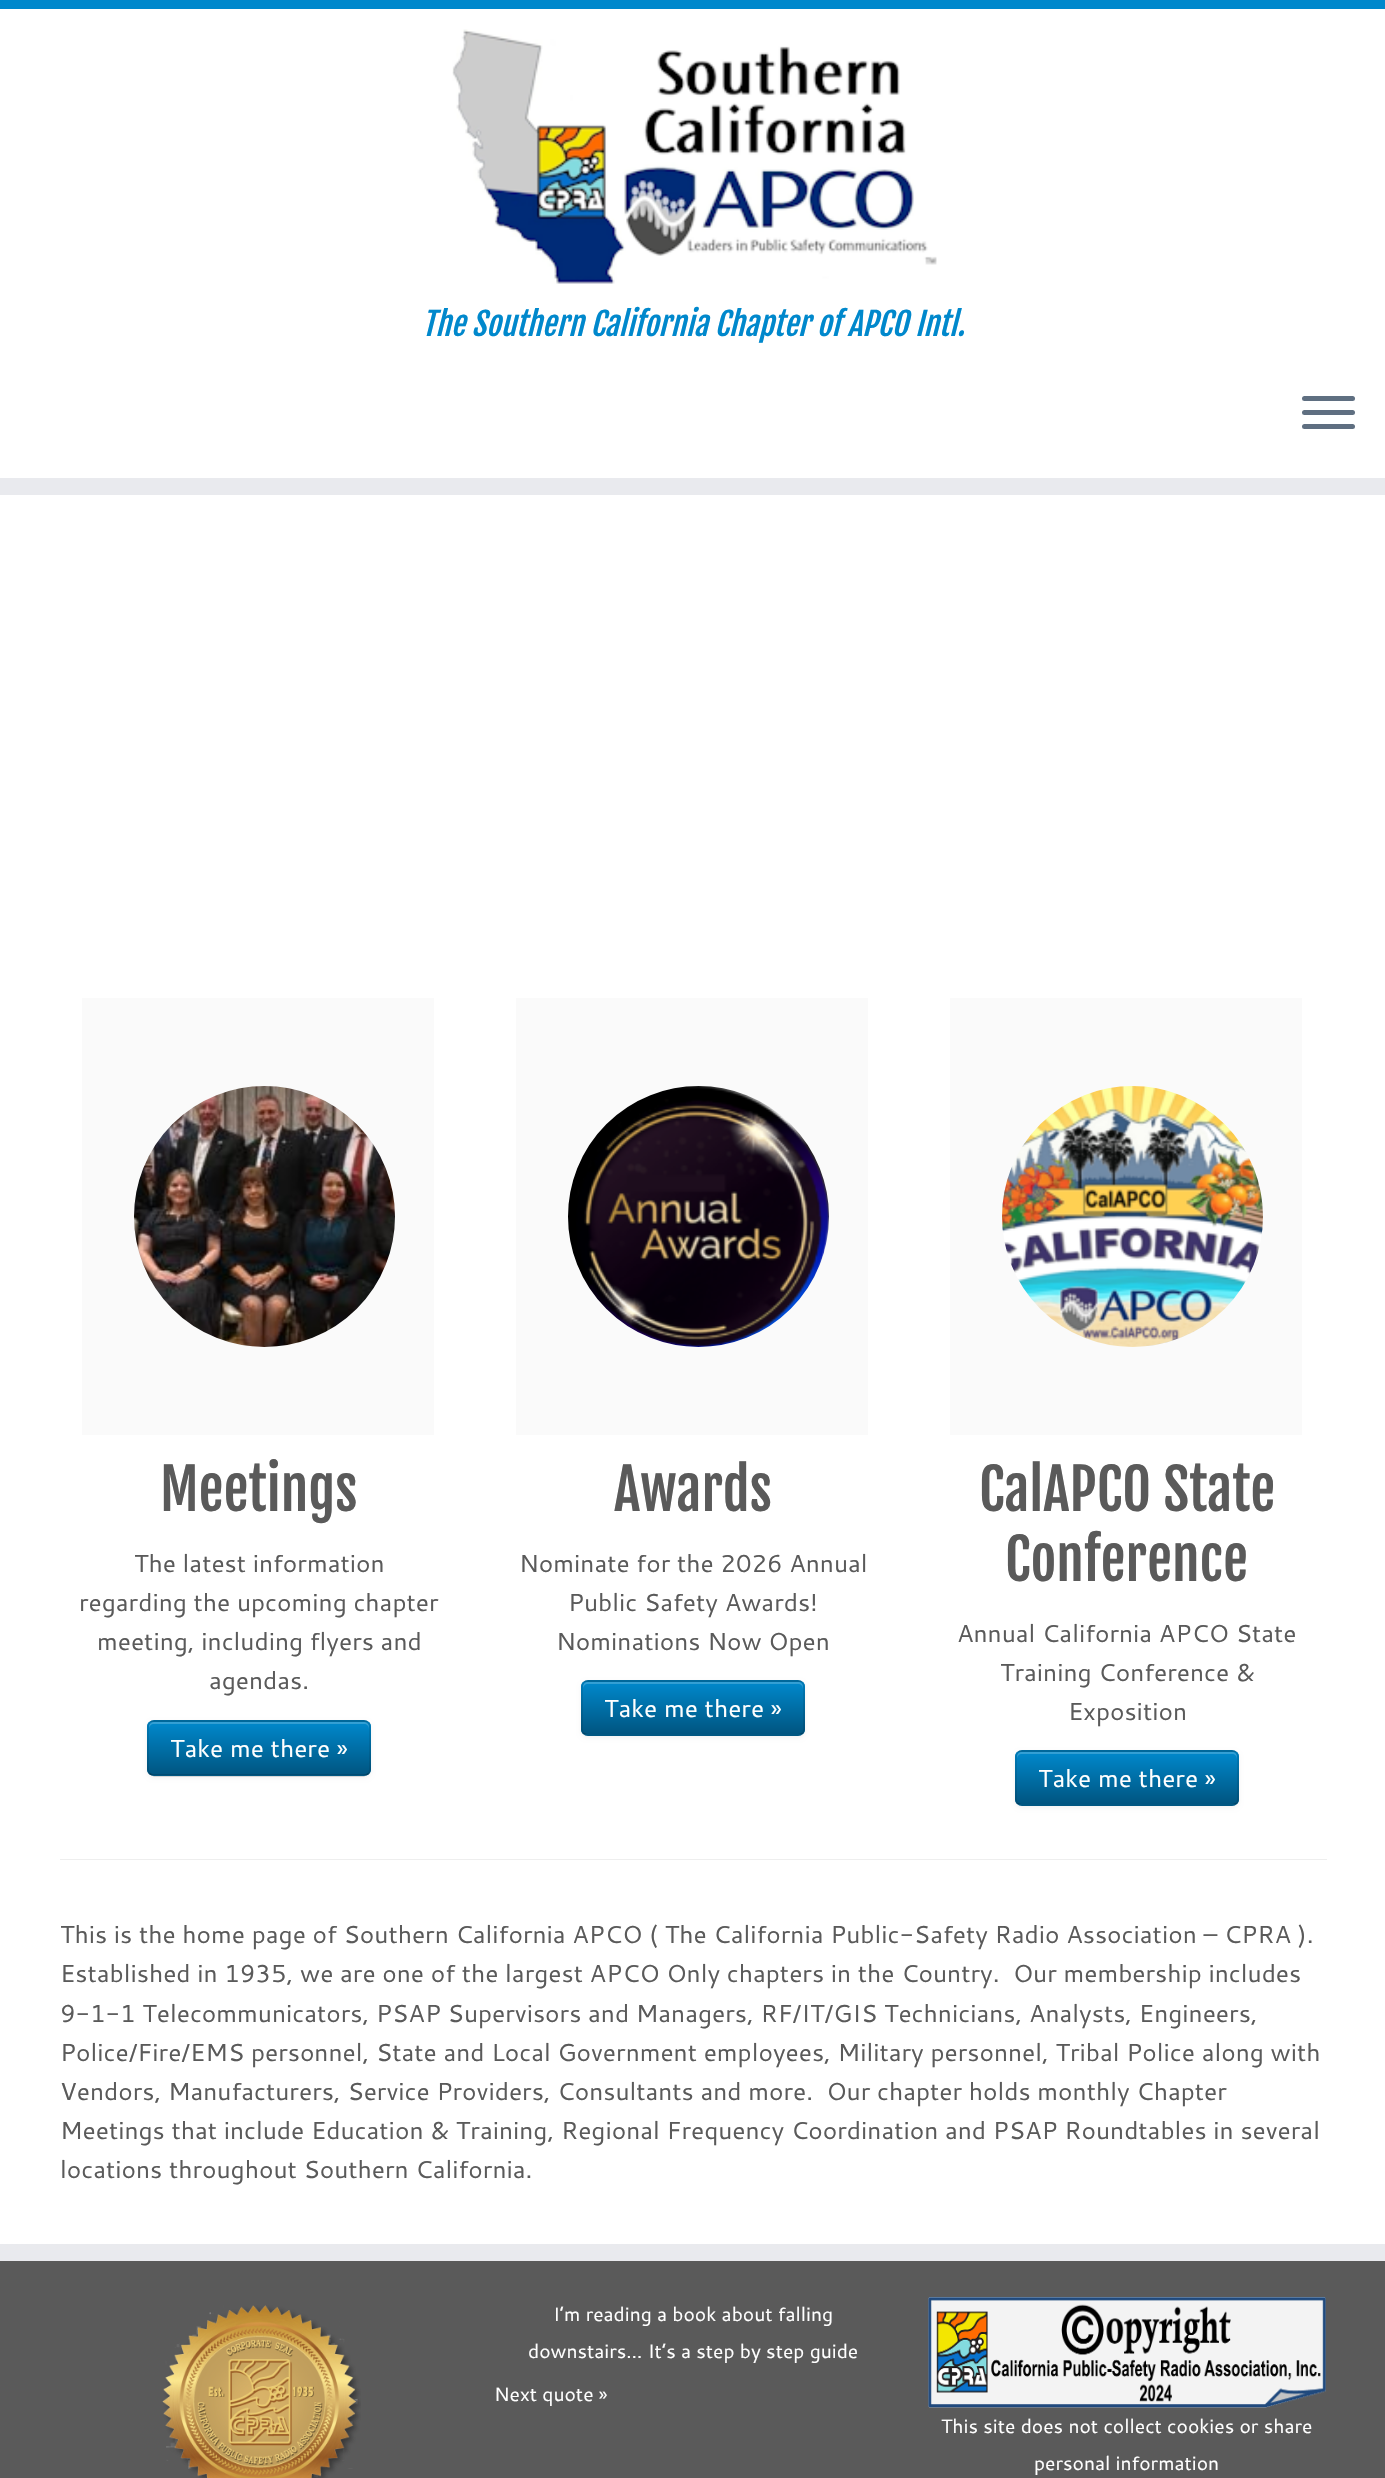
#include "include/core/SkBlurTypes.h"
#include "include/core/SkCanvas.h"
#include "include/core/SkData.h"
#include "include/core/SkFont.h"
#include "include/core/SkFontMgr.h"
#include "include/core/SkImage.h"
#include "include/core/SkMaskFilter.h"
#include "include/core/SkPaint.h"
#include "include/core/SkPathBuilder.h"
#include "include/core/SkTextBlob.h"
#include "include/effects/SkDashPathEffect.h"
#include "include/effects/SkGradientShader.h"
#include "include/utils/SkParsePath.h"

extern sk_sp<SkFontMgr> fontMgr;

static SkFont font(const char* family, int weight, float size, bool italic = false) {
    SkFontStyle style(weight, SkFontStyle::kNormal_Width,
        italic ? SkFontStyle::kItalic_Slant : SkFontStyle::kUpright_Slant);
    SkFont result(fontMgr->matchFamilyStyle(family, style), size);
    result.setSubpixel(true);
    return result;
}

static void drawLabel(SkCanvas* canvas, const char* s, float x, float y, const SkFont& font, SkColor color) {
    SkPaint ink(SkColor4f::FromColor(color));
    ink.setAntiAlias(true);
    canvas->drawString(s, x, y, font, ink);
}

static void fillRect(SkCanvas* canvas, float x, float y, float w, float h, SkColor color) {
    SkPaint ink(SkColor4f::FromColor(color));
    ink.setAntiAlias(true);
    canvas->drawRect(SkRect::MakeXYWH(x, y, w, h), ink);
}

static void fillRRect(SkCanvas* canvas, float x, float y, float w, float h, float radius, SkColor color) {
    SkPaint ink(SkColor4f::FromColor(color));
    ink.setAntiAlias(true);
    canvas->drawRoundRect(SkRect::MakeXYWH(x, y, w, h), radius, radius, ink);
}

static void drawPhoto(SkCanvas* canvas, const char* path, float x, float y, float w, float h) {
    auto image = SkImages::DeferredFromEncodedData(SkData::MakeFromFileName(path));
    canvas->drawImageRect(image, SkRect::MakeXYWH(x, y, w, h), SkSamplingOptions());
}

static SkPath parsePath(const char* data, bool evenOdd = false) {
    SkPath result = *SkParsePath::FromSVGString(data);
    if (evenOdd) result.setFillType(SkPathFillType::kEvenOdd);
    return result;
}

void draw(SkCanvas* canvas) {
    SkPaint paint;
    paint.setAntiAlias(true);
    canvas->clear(0xFFFFFFFF);
    fillRect(canvas, 0, 0, 1385, 9, 0xFF0088CC);
    fillRect(canvas, 0, 478, 1385, 17, 0xFFE9EAEE);
    drawPhoto(canvas, "assets/img1.png", 452, 29, 485, 255);
    SkFont font1 = font("Fjalla One", 400, 31.5f, true);
    drawLabel(canvas, "The Southern California Chapter of APCO Intl.", 422, 336, font1, 0xFF0088CC);
    fillRRect(canvas, 1302, 396, 53, 5, 2.5f, 0xFF5F6F81);
    fillRRect(canvas, 1302, 410, 53, 5, 2.5f, 0xFF5F6F81);
    fillRRect(canvas, 1302, 424, 53, 5, 2.5f, 0xFF5F6F81);
    drawPhoto(canvas, "assets/img2.png", 134, 1086, 261, 261);
    SkFont font2 = font("Fjalla One", 400, 56);
    drawLabel(canvas, "Meetings", 160, 1511, font2, 0xFF5A5A5A);
    canvas->save();
    canvas->clipRect(SkRect::MakeXYWH(82, 998, 352, 437));
    paint.setStroke(true);
    paint.setStrokeWidth(165);
    paint.setColor(0xFFFAFAFA);
    canvas->drawCircle(264.5f, 1216.5f, 213, paint);
    canvas->restore();
    SkFont font3 = font("Cantarell", 400, 24.5f);
    drawLabel(canvas, "The latest information", 134, 1572, font3, 0xFF5A5A5A);
    drawLabel(canvas, "regarding the upcoming chapter", 79, 1611, font3, 0xFF5A5A5A);
    drawLabel(canvas, "meeting, including flyers and", 97, 1650, font3, 0xFF5A5A5A);
    drawLabel(canvas, "agendas.", 209, 1689, font3, 0xFF5A5A5A);
    paint.setStroke(false);
    paint.setColor(0x0D000000);
    paint.setMaskFilter(SkMaskFilter::MakeBlur(kNormal_SkBlurStyle, 2));
    canvas->drawRoundRect(SkRect::MakeXYWH(147, 1722, 224, 56), 7, 7, paint);
    paint.setMaskFilter(nullptr);
    fillRRect(canvas, 147, 1720, 224, 56, 7, 0xFF0074AD);
    canvas->save();
    canvas->clipPath(parsePath("M154 1720H364C368 1720 371 1723 371 1727V1769C371 1773 368 1776 364 1776H154C150 1776 147 1773 147 1769V1727C147 1723 150 1720 154 1720Z"), true);
    {
        const SkColor colors[] = {0xFF0088CC, 0xFF005580};
        const float stops[] = {0, 1};
        const SkPoint ends[] = {{259, 1722}, {259, 1775}};
        paint.setShader(SkGradientShader::MakeLinear(ends, colors, stops, 2, SkTileMode::kClamp));
        paint.setAlpha(255);
    }
    canvas->drawRect(SkRect::MakeXYWH(147, 1722, 224, 53), paint);
    canvas->restore();
    paint.setShader(nullptr);
    paint.setColor(0x33FFFFFF);
    canvas->drawPath(parsePath("M154 1724H364C367 1724 369 1726 369 1729V1727C369 1724 367 1722 364 1722H154C151 1722 149 1724 149 1727V1729C149 1726 151 1724 154 1724Z"), paint);
    paint.setStroke(true);
    paint.setStrokeWidth(1.8f);
    paint.setColor(0x40000000);
    canvas->drawPath(parsePath("M368.5 1773.5C367 1774.5 365.5 1775.5 364 1775.5H154C152.5 1775.5 151 1774.5 149.5 1773.5"), paint);
    paint.setColor(0x1A000000);
    canvas->drawPath(parsePath("M149.5 1773.5C148.5 1772.5 148 1771 148 1769V1727C148 1725.5 148.5 1724 149.5 1723C151 1722 152.5 1721 154 1721H364C365.5 1721 367 1722 368.5 1723C369.5 1724 370 1725.5 370 1727V1769C370 1771 369.5 1772.5 368.5 1773.5"), paint);
    drawLabel(canvas, "Take me there »", 170, 1757, font3, 0xFFFFFFFF);
    drawPhoto(canvas, "assets/img3.png", 568, 1086, 261, 261);
    drawLabel(canvas, "Awards", 614, 1511, font2, 0xFF5A5A5A);
    drawLabel(canvas, "CalAPCO State", 979, 1511, font2, 0xFF5A5A5A);
    canvas->save();
    canvas->clipRect(SkRect::MakeXYWH(516, 998, 352, 437));
    paint.setStrokeWidth(165);
    paint.setColor(0xFFFAFAFA);
    canvas->drawCircle(698.5f, 1216.5f, 213, paint);
    canvas->restore();
    drawLabel(canvas, "Nominate for the 2026 Annual", 519, 1572, font3, 0xFF5A5A5A);
    drawLabel(canvas, "Public Safety Awards!", 568, 1611, font3, 0xFF5A5A5A);
    drawLabel(canvas, "Nominations Now Open", 556, 1650, font3, 0xFF5A5A5A);
    paint.setStroke(false);
    paint.setColor(0x0D000000);
    paint.setMaskFilter(SkMaskFilter::MakeBlur(kNormal_SkBlurStyle, 2));
    canvas->drawRoundRect(SkRect::MakeXYWH(581, 1682, 224, 56), 7, 7, paint);
    paint.setMaskFilter(nullptr);
    fillRRect(canvas, 581, 1680, 224, 56, 7, 0xFF0074AD);
    canvas->save();
    canvas->clipPath(parsePath("M588 1680H798C802 1680 805 1683 805 1687V1729C805 1733 802 1736 798 1736H588C584 1736 581 1733 581 1729V1687C581 1683 584 1680 588 1680Z"), true);
    {
        const SkColor colors[] = {0xFF0088CC, 0xFF005580};
        const float stops[] = {0, 1};
        const SkPoint ends[] = {{693, 1682}, {693, 1734}};
        paint.setShader(SkGradientShader::MakeLinear(ends, colors, stops, 2, SkTileMode::kClamp));
        paint.setAlpha(255);
    }
    canvas->drawRect(SkRect::MakeXYWH(581, 1682, 224, 52), paint);
    canvas->restore();
    paint.setShader(nullptr);
    paint.setColor(0x33FFFFFF);
    canvas->drawPath(parsePath("M588 1684H798C801 1684 803 1686 803 1689V1687C803 1684 801 1682 798 1682H588C585 1682 583 1684 583 1687V1689C583 1686 585 1684 588 1684Z"), paint);
    paint.setStroke(true);
    paint.setStrokeWidth(1.8f);
    paint.setColor(0x40000000);
    canvas->drawPath(parsePath("M802.5 1733.5C801 1734.5 799.5 1735 798 1735H588C586.5 1735 585 1734.5 583.5 1733.5"), paint);
    paint.setColor(0x1A000000);
    canvas->drawPath(parsePath("M583.5 1733.5C582.5 1732 582 1730.5 582 1729V1687C582 1685.5 582.5 1684 583.5 1682.5C585 1681.5 586.5 1681 588 1681H798C799.5 1681 801 1681.5 802.5 1682.5C803.5 1684 804 1685.5 804 1687V1729C804 1730.5 803.5 1732 802.5 1733.5"), paint);
    drawLabel(canvas, "Take me there »", 604, 1717, font3, 0xFFFFFFFF);
    drawPhoto(canvas, "assets/img4.png", 1002, 1086, 261, 261);
    canvas->save();
    canvas->clipRect(SkRect::MakeXYWH(950, 998, 352, 437));
    paint.setStrokeWidth(165);
    paint.setColor(0xFFFAFAFA);
    canvas->drawCircle(1132.5f, 1216.5f, 213, paint);
    canvas->restore();
    drawLabel(canvas, "Conference", 1005, 1581, font2, 0xFF5A5A5A);
    drawLabel(canvas, "Annual California APCO State", 957, 1642, font3, 0xFF5A5A5A);
    drawLabel(canvas, "Training Conference &", 1000, 1681, font3, 0xFF5A5A5A);
    drawLabel(canvas, "Exposition", 1068, 1720, font3, 0xFF5A5A5A);
    paint.setStroke(false);
    paint.setColor(0x0D000000);
    paint.setMaskFilter(SkMaskFilter::MakeBlur(kNormal_SkBlurStyle, 2));
    canvas->drawRoundRect(SkRect::MakeXYWH(1015, 1752, 224, 56), 7, 7, paint);
    paint.setMaskFilter(nullptr);
    fillRRect(canvas, 1015, 1750, 224, 56, 7, 0xFF0074AD);
    canvas->save();
    canvas->clipPath(parsePath("M1022 1750H1232C1236 1750 1239 1753 1239 1757V1799C1239 1803 1236 1806 1232 1806H1022C1018 1806 1015 1803 1015 1799V1757C1015 1753 1018 1750 1022 1750Z"), true);
    {
        const SkColor colors[] = {0xFF0088CC, 0xFF005580};
        const float stops[] = {0, 1};
        const SkPoint ends[] = {{1127, 1752}, {1127, 1804}};
        paint.setShader(SkGradientShader::MakeLinear(ends, colors, stops, 2, SkTileMode::kClamp));
        paint.setAlpha(255);
    }
    canvas->drawRect(SkRect::MakeXYWH(1015, 1752, 224, 52), paint);
    canvas->restore();
    paint.setShader(nullptr);
    paint.setColor(0x33FFFFFF);
    canvas->drawPath(parsePath("M1022 1754H1232C1235 1754 1237 1756 1237 1759V1757C1237 1754 1235 1752 1232 1752H1022C1019 1752 1017 1754 1017 1757V1759C1017 1756 1019 1754 1022 1754Z"), paint);
    paint.setStroke(true);
    paint.setStrokeWidth(1.8f);
    paint.setColor(0x40000000);
    canvas->drawPath(parsePath("M1236.5 1803.5C1235 1804.5 1233.5 1805 1232 1805H1022C1020.5 1805 1019 1804.5 1017.5 1803.5"), paint);
    paint.setColor(0x1A000000);
    canvas->drawPath(parsePath("M1017.5 1803.5C1016.5 1802 1016 1800.5 1016 1799V1757C1016 1755.5 1016.5 1754 1017.5 1752.5C1019 1751.5 1020.5 1751 1022 1751H1232C1233.5 1751 1235 1751.5 1236.5 1752.5C1237.5 1754 1238 1755.5 1238 1757V1799C1238 1800.5 1237.5 1802 1236.5 1803.5"), paint);
    drawLabel(canvas, "Take me there »", 1038, 1787, font3, 0xFFFFFFFF);
    fillRect(canvas, 60, 1859, 1267, 1, 0xFFEEEEEE);
    drawLabel(canvas, "This is the home page of Southern California APCO ( The California Public-Safety Radio Association – CPRA ).", 60, 1943, font3, 0xFF5A5A5A);
    drawLabel(canvas, "Established in 1935, we are one of the largest APCO Only chapters in the Country.  Our membership includes", 60, 1982, font3, 0xFF5A5A5A);
    drawLabel(canvas, "9-1-1 Telecommunicators, PSAP Supervisors and Managers, RF/IT/GIS Technicians, Analysts, Engineers,", 60, 2022, font3, 0xFF5A5A5A);
    drawLabel(canvas, "Police/Fire/EMS personnel, State and Local Government employees, Military personnel, Tribal Police along with", 60, 2061, font3, 0xFF5A5A5A);
    drawLabel(canvas, "Vendors, Manufacturers, Service Providers, Consultants and more.  Our chapter holds monthly Chapter", 60, 2100, font3, 0xFF5A5A5A);
    drawLabel(canvas, "Meetings that include Education & Training, Regional Frequency Coordination and PSAP Roundtables in several", 60, 2139, font3, 0xFF5A5A5A);
    drawLabel(canvas, "locations throughout Southern California.", 60, 2178, font3, 0xFF5A5A5A);
    fillRect(canvas, 0, 2261, 1385, 217, 0xFF5A5A5A);
    fillRect(canvas, 0, 2244, 1385, 17, 0xFFE9EAEE);
    drawPhoto(canvas, "assets/img5.png", 162, 2305, 199, 173);
    SkFont font4 = font("Cantarell", 400, 19.25f);
    drawLabel(canvas, "I’m reading a book about falling", 553, 2321, font4, 0xFFFFFFFF);
    drawLabel(canvas, "downstairs… It’s a step by step guide", 528, 2358, font4, 0xFFFFFFFF);
    drawLabel(canvas, "Next quote »", 494, 2401, font4, 0xFFFFFFFF);
    drawPhoto(canvas, "assets/img6.png", 928, 2297, 398, 111);
    drawLabel(canvas, "This site does not collect cookies or share", 941, 2433, font4, 0xFFFFFFFF);
    drawLabel(canvas, "personal information", 1034, 2470, font4, 0xFFFFFFFF);
}
